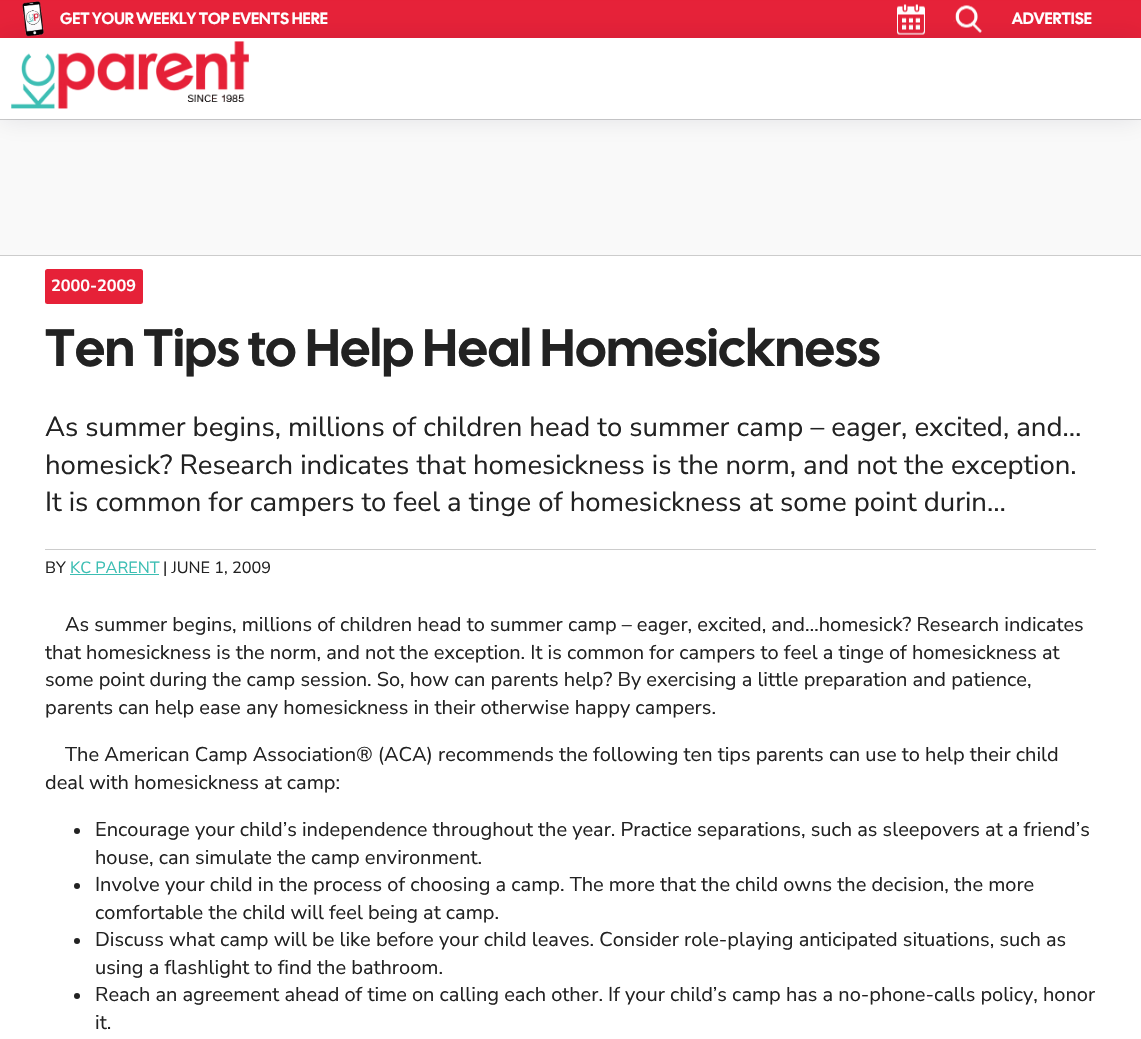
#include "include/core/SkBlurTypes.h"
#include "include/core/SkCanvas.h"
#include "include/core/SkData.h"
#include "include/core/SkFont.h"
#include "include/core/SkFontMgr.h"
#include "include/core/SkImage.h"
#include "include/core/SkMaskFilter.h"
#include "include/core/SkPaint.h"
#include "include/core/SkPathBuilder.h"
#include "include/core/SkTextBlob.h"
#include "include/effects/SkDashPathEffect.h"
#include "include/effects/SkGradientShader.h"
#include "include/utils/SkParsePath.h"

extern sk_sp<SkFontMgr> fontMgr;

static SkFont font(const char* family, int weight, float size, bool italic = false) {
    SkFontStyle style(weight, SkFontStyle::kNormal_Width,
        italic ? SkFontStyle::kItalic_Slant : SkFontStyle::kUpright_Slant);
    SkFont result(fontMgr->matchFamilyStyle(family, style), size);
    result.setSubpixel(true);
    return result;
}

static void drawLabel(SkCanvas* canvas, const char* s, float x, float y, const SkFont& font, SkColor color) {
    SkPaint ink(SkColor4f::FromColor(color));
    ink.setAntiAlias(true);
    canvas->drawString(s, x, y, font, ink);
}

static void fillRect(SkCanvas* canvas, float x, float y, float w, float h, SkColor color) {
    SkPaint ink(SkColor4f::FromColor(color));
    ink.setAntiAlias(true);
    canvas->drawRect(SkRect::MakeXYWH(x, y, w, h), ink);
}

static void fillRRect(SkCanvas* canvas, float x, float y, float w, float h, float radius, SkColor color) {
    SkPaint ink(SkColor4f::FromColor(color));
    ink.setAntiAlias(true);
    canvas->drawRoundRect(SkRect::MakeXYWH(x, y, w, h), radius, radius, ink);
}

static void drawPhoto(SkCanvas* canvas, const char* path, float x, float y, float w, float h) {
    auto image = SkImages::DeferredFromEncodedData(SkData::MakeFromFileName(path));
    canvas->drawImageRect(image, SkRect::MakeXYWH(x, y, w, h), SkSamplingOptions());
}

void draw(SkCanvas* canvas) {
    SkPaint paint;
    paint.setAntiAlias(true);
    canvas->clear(0xFFFFFFFF);
    fillRect(canvas, 0, 0, 1141, 38, 0xFFE62138);
    drawPhoto(canvas, "assets/img2.png", 22, 1, 22, 36);
    drawPhoto(canvas, "assets/img3.png", 897, 4, 28, 31);
    drawPhoto(canvas, "assets/img4.png", 953, 5, 29, 28);
    fillRect(canvas, 0, 120, 1141, 135, 0xFFF9F9F9);
    fillRect(canvas, 0, 119, 1141, 1, 0xFFCCCCCC);
    paint.setColor(0x1A09182D);
    paint.setMaskFilter(SkMaskFilter::MakeBlur(kNormal_SkBlurStyle, 12.5f));
    canvas->drawRect(SkRect::MakeXYWH(0, 38, 1141, 81), paint);
    paint.setMaskFilter(nullptr);
    fillRect(canvas, 0, 38, 1141, 81, 0xFFFFFFFF);
    drawPhoto(canvas, "assets/img1.png", 11, 41, 238, 68);
    SkFont font1 = font("Cal Sans", 400, 16.25f);
    drawLabel(canvas, "GET YOUR WEEKLY TOP EVENTS HERE", 60, 24, font1, 0xFFFFFFFF);
    drawLabel(canvas, "ADVERTISE", 1012, 24, font1, 0xFFFFFFFF);
    fillRect(canvas, 0, 255, 1141, 1, 0xFFCCCCCC);
    fillRRect(canvas, 45, 269, 98, 35, 2.5f, 0xFFE62138);
    SkFont font2 = font("Nunito Sans", 700, 16.25f);
    drawLabel(canvas, "2000-2009", 51, 291, font2, 0xFFFFFFFF);
    SkFont font3 = font("Cal Sans", 400, 52.5f);
    drawLabel(canvas, "Ten Tips to Help Heal Homesickness", 45, 366, font3, 0xFF222222);
    SkFont font4 = font("Nunito Sans", 400, 27.5f);
    drawLabel(canvas, "As summer begins, millions of children head to summer camp – eager, excited, and…", 45, 436, font4, 0xFF222222);
    drawLabel(canvas, "homesick? Research indicates that homesickness is the norm, and not the exception.", 45, 474, font4, 0xFF222222);
    drawLabel(canvas, "It is common for campers to feel a tinge of homesickness at some point durin…", 45, 511, font4, 0xFF222222);
    fillRect(canvas, 45, 549, 1051, 1, 0xFFCCCCCC);
    SkFont font5 = font("Nunito Sans", 400, 16.25f);
    drawLabel(canvas, "BY", 45, 573, font5, 0xFF222222);
    drawLabel(canvas, "KC PARENT", 70, 573, font5, 0xFF3CBEB3);
    fillRect(canvas, 70, 574, 89, 1, 0xFF3CBEB3);
    drawLabel(canvas, "| JUNE 1, 2009", 163, 573, font5, 0xFF222222);
    SkFont font6 = font("Nunito Sans", 400, 20);
    drawLabel(canvas, "As summer begins, millions of children head to summer camp – eager, excited, and…homesick? Research indicates", 65, 631, font6, 0xFF222222);
    drawLabel(canvas, "that homesickness is the norm, and not the exception. It is common for campers to feel a tinge of homesickness at", 45, 659, font6, 0xFF222222);
    drawLabel(canvas, "some point during the camp session. So, how can parents help? By exercising a little preparation and patience,", 45, 686, font6, 0xFF222222);
    drawLabel(canvas, "parents can help ease any homesickness in their otherwise happy campers.", 45, 714, font6, 0xFF222222);
    drawLabel(canvas, "The American Camp Association® (ACA) recommends the following ten tips parents can use to help their child", 65, 761, font6, 0xFF222222);
    drawLabel(canvas, "deal with homesickness at camp:", 45, 789, font6, 0xFF222222);
    paint.setColor(0xFF222222);
    canvas->drawCircle(77, 831, 3, paint);
    drawLabel(canvas, "Encourage your child’s independence throughout the year. Practice separations, such as sleepovers at a friend’s", 95, 836, font6, 0xFF222222);
    drawLabel(canvas, "house, can simulate the camp environment.", 95, 864, font6, 0xFF222222);
    canvas->drawCircle(77, 886, 3, paint);
    drawLabel(canvas, "Involve your child in the process of choosing a camp. The more that the child owns the decision, the more", 95, 891, font6, 0xFF222222);
    drawLabel(canvas, "comfortable the child will feel being at camp.", 95, 919, font6, 0xFF222222);
    canvas->drawCircle(77, 941, 3, paint);
    drawLabel(canvas, "Discuss what camp will be like before your child leaves. Consider role-playing anticipated situations, such as", 95, 946, font6, 0xFF222222);
    drawLabel(canvas, "using a flashlight to find the bathroom.", 95, 974, font6, 0xFF222222);
    canvas->drawCircle(77, 996, 3, paint);
    drawLabel(canvas, "Reach an agreement ahead of time on calling each other. If your child’s camp has a no-phone-calls policy, honor", 95, 1001, font6, 0xFF222222);
    drawLabel(canvas, "it.", 95, 1029, font6, 0xFF222222);
}
